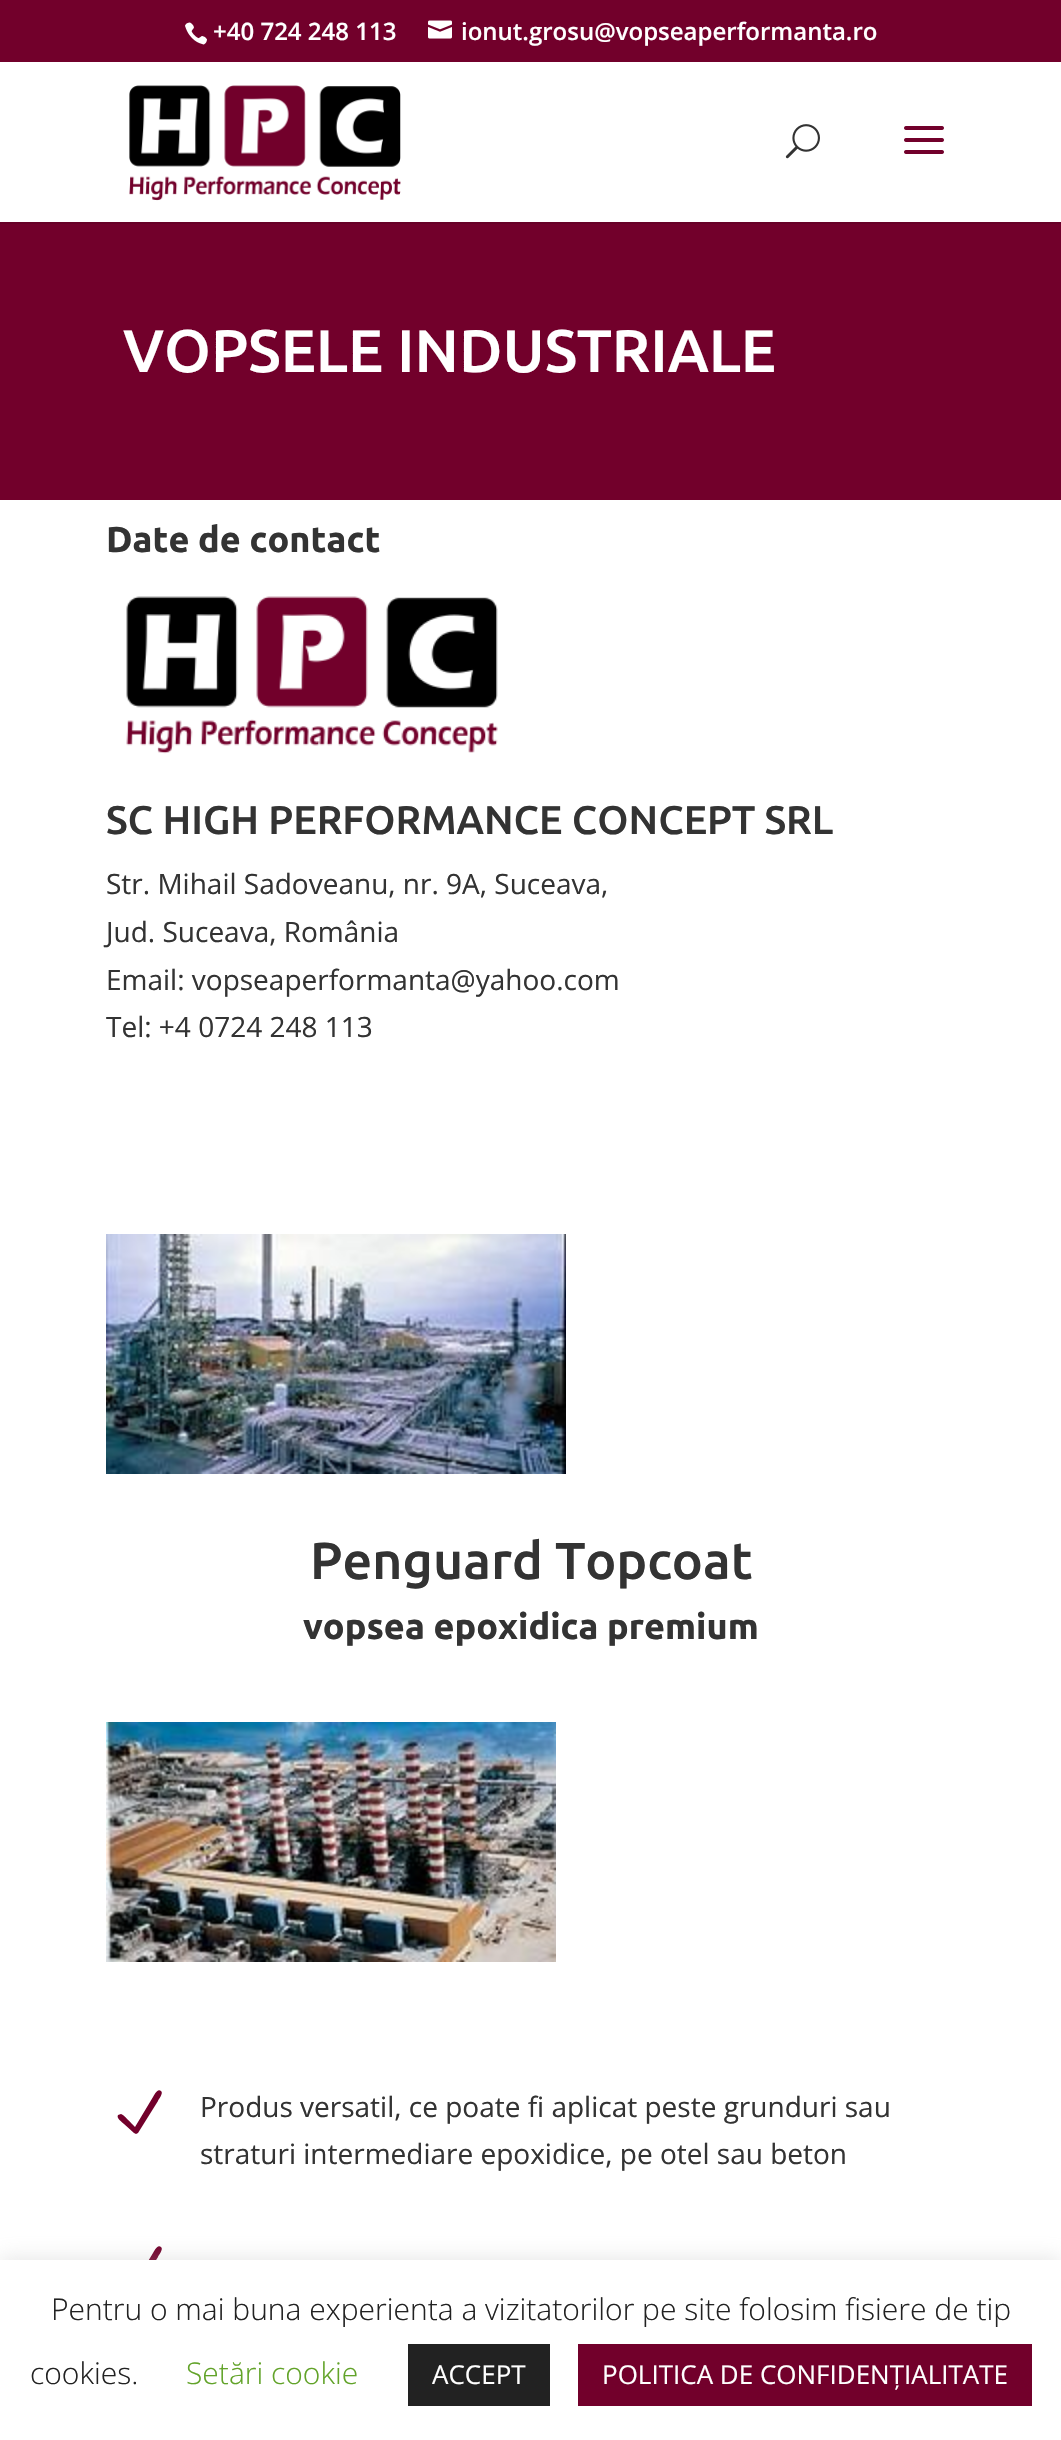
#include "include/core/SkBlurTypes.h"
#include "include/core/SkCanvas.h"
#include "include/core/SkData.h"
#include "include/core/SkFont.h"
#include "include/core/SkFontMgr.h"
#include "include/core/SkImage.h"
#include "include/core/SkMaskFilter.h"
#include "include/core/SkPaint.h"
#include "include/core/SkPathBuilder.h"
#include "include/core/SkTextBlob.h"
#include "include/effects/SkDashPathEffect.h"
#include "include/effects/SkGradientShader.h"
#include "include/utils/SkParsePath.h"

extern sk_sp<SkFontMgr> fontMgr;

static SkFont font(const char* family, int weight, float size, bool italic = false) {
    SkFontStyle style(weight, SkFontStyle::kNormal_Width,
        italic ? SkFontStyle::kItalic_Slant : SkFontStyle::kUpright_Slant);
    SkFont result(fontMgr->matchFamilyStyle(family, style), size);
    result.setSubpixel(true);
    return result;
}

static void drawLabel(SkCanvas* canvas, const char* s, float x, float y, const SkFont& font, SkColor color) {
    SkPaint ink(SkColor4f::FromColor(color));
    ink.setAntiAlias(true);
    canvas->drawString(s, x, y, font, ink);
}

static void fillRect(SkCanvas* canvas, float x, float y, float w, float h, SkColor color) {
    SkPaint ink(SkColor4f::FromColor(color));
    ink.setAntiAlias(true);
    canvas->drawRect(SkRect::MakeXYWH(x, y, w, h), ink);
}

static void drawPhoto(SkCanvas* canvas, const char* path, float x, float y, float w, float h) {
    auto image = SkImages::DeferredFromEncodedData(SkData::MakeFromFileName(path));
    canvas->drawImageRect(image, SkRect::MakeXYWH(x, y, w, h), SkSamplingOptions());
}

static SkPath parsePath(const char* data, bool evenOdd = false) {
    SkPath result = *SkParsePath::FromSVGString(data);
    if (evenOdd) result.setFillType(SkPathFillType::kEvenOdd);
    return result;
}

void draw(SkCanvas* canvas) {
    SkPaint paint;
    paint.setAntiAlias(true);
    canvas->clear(0xFFFFFFFF);
    fillRect(canvas, 0, 0, 1061, 62, 0xFF72002B);
    drawPhoto(canvas, "assets/img1.png", 185, 22, 22, 23);
    SkFont font1 = font("Open Sans", 600, 24);
    drawLabel(canvas, "+40 724 248 113", 213, 40, font1, 0xFFFFFFFF);
    drawPhoto(canvas, "assets/img2.png", 428, 20, 24, 19);
    drawLabel(canvas, "ionut.grosu@vopseaperformanta.ro", 461, 40, font1, 0xFFFFFFFF);
    fillRect(canvas, 0, 222, 1061, 2, 0xFF670027);
    drawPhoto(canvas, "assets/img3.png", 129, 85, 272, 116);
    drawPhoto(canvas, "assets/img4.png", 785, 124, 35, 35);
    drawPhoto(canvas, "assets/img5.png", 904, 126, 40, 28);
    fillRect(canvas, 0, 224, 1061, 276, 0xFF72002B);
    SkFont font2 = font("Ubuntu", 500, 60);
    drawLabel(canvas, "VOPSELE INDUSTRIALE", 123, 372, font2, 0xFFFFFFFF);
    SkFont font3 = font("Ubuntu", 700, 36);
    drawLabel(canvas, "Date de contact", 106, 552, font3, 0xFF333333);
    drawPhoto(canvas, "assets/img6.png", 126, 596, 372, 158);
    SkFont font4 = font("Ubuntu", 500, 40);
    drawLabel(canvas, "SC HIGH PERFORMANCE CONCEPT SRL", 106, 834, font4, 0xFF333333);
    SkFont font5 = font("Open Sans", 400, 28);
    drawLabel(canvas, "Str. Mihail Sadoveanu, nr. 9A, Suceava,", 106, 894, font5, 0xFF333333);
    drawLabel(canvas, "Jud. Suceava, România", 106, 942, font5, 0xFF333333);
    drawLabel(canvas, "Email: vopseaperformanta@yahoo.com", 106, 990, font5, 0xFF333333);
    drawLabel(canvas, "Tel: +4 0724 248 113", 106, 1037, font5, 0xFF333333);
    drawPhoto(canvas, "assets/img7.png", 106, 1234, 460, 240);
    SkFont font6 = font("Ubuntu", 500, 52);
    drawLabel(canvas, "Penguard Topcoat", 310, 1579, font6, 0xFF333333);
    drawLabel(canvas, "vopsea epoxidica premium", 303, 1639, font3, 0xFF333333);
    drawPhoto(canvas, "assets/img8.png", 106, 1722, 450, 240);
    paint.setColor(0xFF72002B);
    canvas->drawPath(parsePath("M134 2133L136 2134L138 2133L158 2101C158 2100 164 2093 161 2091C157 2088 154 2096 153 2097L135 2127C132 2124 123 2114 121 2114L118 2115C116 2118 122 2122 124 2124Z"), paint);
    drawLabel(canvas, "Produs versatil, ce poate fi aplicat peste grunduri sau", 200, 2117, font5, 0xFF333333);
    drawLabel(canvas, "straturi intermediare epoxidice, pe otel sau beton", 200, 2164, font5, 0xFF333333);
    canvas->drawPath(parsePath("M134 2289L136 2290L138 2289L158 2257C158 2256 164 2249 161 2247C157 2244 154 2252 153 2253L135 2283C132 2280 123 2270 121 2270L118 2271C116 2274 122 2278 124 2280Z"), paint);
    paint.setColor(0x4DACABAB);
    paint.setMaskFilter(SkMaskFilter::MakeBlur(kNormal_SkBlurStyle, 10));
    canvas->drawRect(SkRect::MakeXYWH(0, 2258, 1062, 180), paint);
    paint.setMaskFilter(nullptr);
    fillRect(canvas, 0, 2260, 1061, 180, 0xFFFFFFFF);
    SkFont font7 = font("Open Sans", 300, 30);
    drawLabel(canvas, "Pentru o mai buna experienta a vizitatorilor pe site folosim fisiere de tip", 51, 2320, font7, 0xFF222222);
    drawLabel(canvas, "cookies.", 30, 2384, font7, 0xFF222222);
    drawLabel(canvas, "Setări cookie", 186, 2384, font7, 0xFF62A329);
    fillRect(canvas, 408, 2344, 142, 62, 0xFF222222);
    SkFont font8 = font("Open Sans", 400, 26);
    drawLabel(canvas, "ACCEPT", 432, 2384, font8, 0xFFFFFFFF);
    fillRect(canvas, 578, 2344, 454, 62, 0xFF72002B);
    drawLabel(canvas, "POLITICA DE CONFIDENȚIALITATE", 602, 2384, font8, 0xFFFFFFFF);
}
